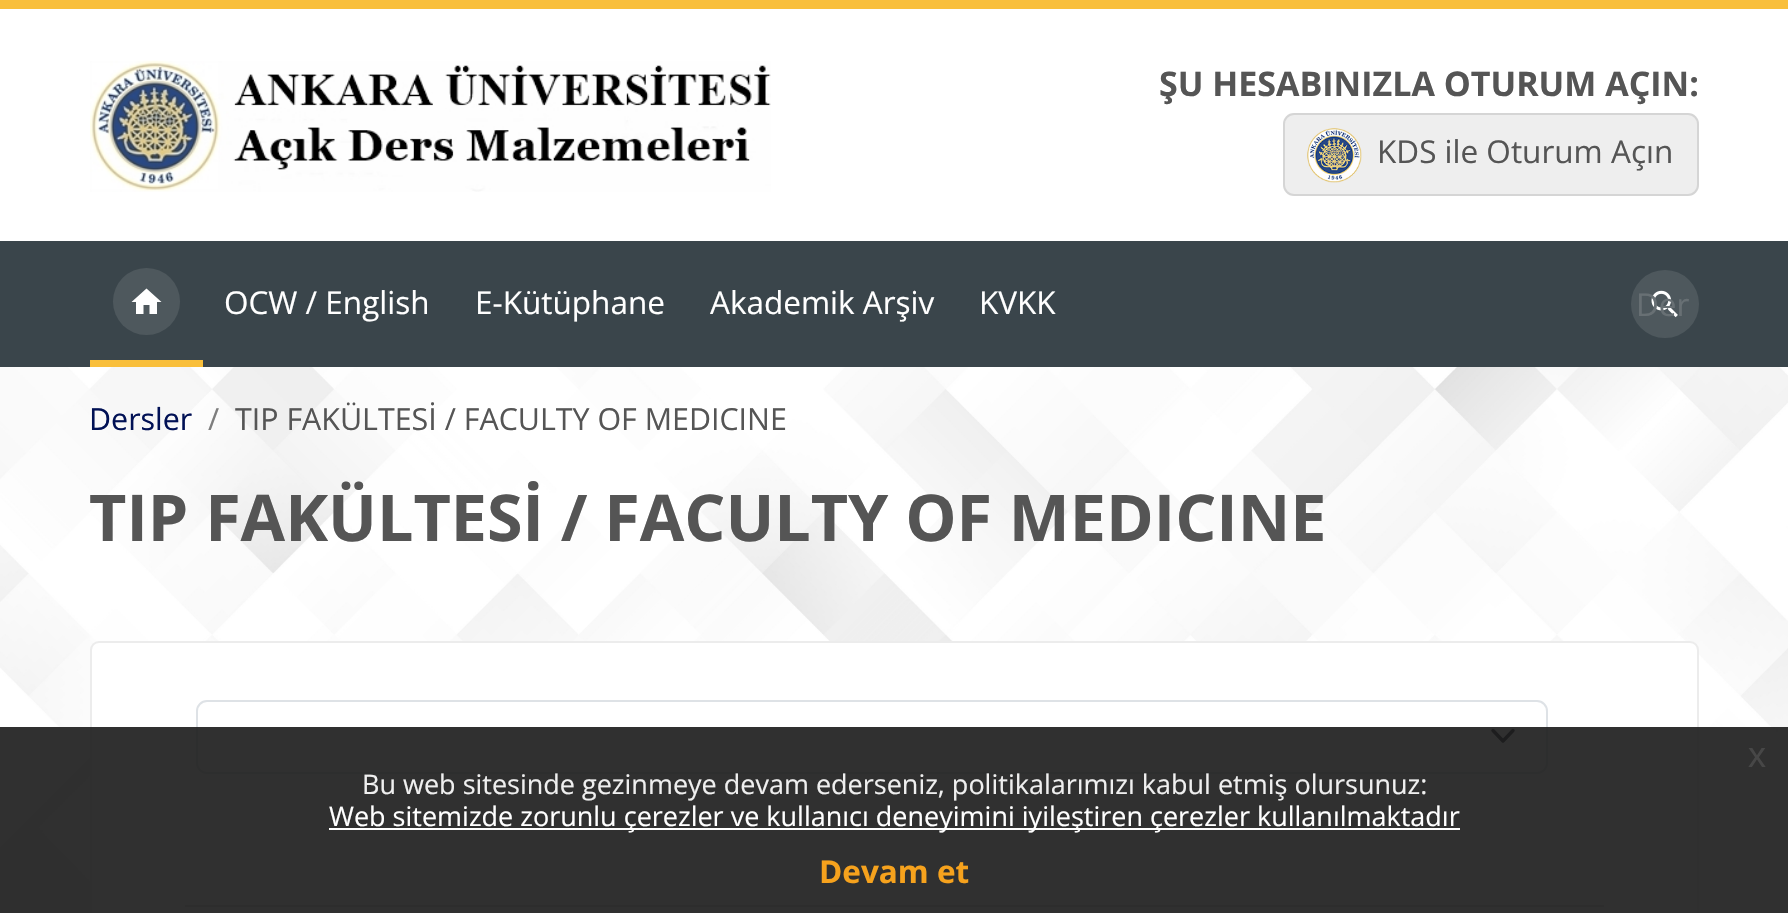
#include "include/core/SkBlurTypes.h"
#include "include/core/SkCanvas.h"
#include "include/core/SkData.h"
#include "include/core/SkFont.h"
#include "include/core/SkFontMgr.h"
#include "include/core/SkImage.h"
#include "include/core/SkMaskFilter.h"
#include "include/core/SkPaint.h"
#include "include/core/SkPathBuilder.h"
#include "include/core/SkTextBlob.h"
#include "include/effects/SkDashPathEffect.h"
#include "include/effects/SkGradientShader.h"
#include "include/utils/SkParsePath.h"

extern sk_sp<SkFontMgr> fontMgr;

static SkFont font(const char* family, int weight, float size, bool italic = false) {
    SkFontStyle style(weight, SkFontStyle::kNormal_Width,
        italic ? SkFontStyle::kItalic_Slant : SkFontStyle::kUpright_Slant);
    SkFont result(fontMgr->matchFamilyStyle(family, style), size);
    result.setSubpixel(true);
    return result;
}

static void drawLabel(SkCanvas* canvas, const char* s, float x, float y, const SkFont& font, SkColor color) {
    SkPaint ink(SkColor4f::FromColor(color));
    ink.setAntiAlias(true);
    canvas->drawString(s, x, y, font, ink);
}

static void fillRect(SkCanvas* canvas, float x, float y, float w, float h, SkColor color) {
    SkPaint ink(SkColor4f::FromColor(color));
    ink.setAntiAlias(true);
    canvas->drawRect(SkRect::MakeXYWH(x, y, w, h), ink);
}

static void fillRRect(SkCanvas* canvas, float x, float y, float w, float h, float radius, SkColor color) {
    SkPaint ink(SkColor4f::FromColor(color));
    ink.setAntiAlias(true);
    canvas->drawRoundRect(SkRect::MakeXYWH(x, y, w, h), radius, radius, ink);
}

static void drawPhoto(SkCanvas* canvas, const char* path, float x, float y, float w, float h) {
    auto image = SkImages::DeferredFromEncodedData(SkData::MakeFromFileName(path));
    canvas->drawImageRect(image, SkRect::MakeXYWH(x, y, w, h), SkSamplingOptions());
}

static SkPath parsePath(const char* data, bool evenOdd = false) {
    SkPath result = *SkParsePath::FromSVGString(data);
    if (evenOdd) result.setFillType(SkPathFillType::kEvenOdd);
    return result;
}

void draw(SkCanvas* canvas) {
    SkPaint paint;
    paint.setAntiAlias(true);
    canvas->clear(0xFFFFFFFF);
    drawPhoto(canvas, "assets/img1.png", 0, 367, 1788, 546);
    fillRect(canvas, 0, 0, 1788, 9, 0xFFF9BF3B);
    drawPhoto(canvas, "assets/img2.png", 90, 60, 681, 132);
    SkFont font1 = font("Open Sans", 700, 34);
    drawLabel(canvas, "ŞU HESABINIZLA OTURUM AÇIN:", 1159, 96, font1, 0xFF555555);
    fillRRect(canvas, 1283, 113, 416, 83, 11, 0xFFEEEEEE);
    paint.setStroke(true);
    paint.setStrokeWidth(2);
    paint.setColor(0x1A000000);
    canvas->drawRoundRect(SkRect::MakeXYWH(1284, 114, 414, 81), 10, 10, paint);
    drawPhoto(canvas, "assets/img3.png", 1307, 128, 55, 55);
    SkFont font2 = font("Open Sans", 400, 31.5f);
    drawLabel(canvas, "KDS ile Oturum Açın", 1377, 163, font2, 0xFF555555);
    fillRect(canvas, 0, 241, 1788, 126, 0xFF3A454B);
    fillRect(canvas, 90, 360, 113, 7, 0xFFF9BF3B);
    paint.setStroke(false);
    paint.setColor(0xFF4E585D);
    canvas->drawCircle(146.5f, 301.5f, 33.5f, paint);
    paint.setColor(0xFFFFFFFF);
    canvas->drawPath(parsePath("M143.5 314H136V302H131.5L146.5 288.5L161.5 302H157V314H149.5V305H143.5Z"), paint);
    drawLabel(canvas, "OCW / English", 224, 314, font2, 0xFFFFFFFF);
    drawLabel(canvas, "E-Kütüphane", 475, 314, font2, 0xFFFFFFFF);
    drawLabel(canvas, "Akademik Arşiv", 710, 314, font2, 0xFFFFFFFF);
    drawLabel(canvas, "KVKK", 979, 314, font2, 0xFFFFFFFF);
    paint.setColor(0xFF4E585D);
    canvas->drawCircle(1665, 304, 34, paint);
    drawPhoto(canvas, "assets/img4.png", 1651, 290, 27, 28);
    drawLabel(canvas, "Der", 1636, 316, font2, 0xFF687074);
    SkFont font3 = font("Open Sans", 400, 30.4f);
    drawLabel(canvas, "Dersler", 89, 430, font3, 0xFF011155);
    drawLabel(canvas, "/", 208, 430, font3, 0xFF7E7E7E);
    drawLabel(canvas, "TIP FAKÜLTESİ / FACULTY OF MEDICINE", 235, 430, font3, 0xFF555555);
    SkFont font4 = font("Open Sans", 700, 64.6f);
    drawLabel(canvas, "TIP FAKÜLTESİ / FACULTY OF MEDICINE", 89, 541, font4, 0xFF555555);
    paint.setColor(0xFFFFFFFF);
    canvas->drawRoundRect(SkRect::MakeXYWH(91, 642, 1607, 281), 8, 8, paint);
    paint.setStroke(true);
    paint.setColor(0xFFECECEC);
    canvas->drawRoundRect(SkRect::MakeXYWH(91, 642, 1607, 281), 8, 8, paint);
    paint.setStrokeWidth(3.4f);
    paint.setStrokeCap(SkPaint::kRound_Cap);
    paint.setStrokeJoin(SkPaint::kRound_Join);
    paint.setColor(0xFF343A40);
    canvas->drawPath(parsePath("M1493 730.5L1503 741L1513 730.5"), paint);
    paint.setStrokeWidth(2);
    paint.setStrokeCap(SkPaint::kButt_Cap);
    paint.setStrokeJoin(SkPaint::kMiter_Join);
    paint.setColor(0xFFDEE2E6);
    canvas->drawRoundRect(SkRect::MakeXYWH(197, 701, 1350, 72), 10, 10, paint);
    fillRect(canvas, 185, 905, 1419, 2, 0xFFDDDDDD);
    fillRect(canvas, 0, 727, 1788, 186, 0xE6191919);
    SkFont font5 = font("Liberation Sans", 400, 36);
    drawLabel(canvas, "x", 1748, 767, font5, 0xFF474747);
    SkFont font6 = font("Open Sans", 400, 27);
    drawLabel(canvas, "Bu web sitesinde gezinmeye devam ederseniz, politikalarımızı kabul etmiş olursunuz:", 362, 794, font6, 0xFFEFEFEF);
    fillRect(canvas, 329, 828, 1131, 2, 0xFFFFFFFF);
    drawLabel(canvas, "Web sitemizde zorunlu çerezler ve kullanıcı deneyimini iyileştiren çerezler kullanılmaktadır", 329, 826, font6, 0xFFFFFFFF);
    SkFont font7 = font("Open Sans", 700, 31.5f);
    drawLabel(canvas, "Devam et", 819, 883, font7, 0xFFF6A21D);
}
